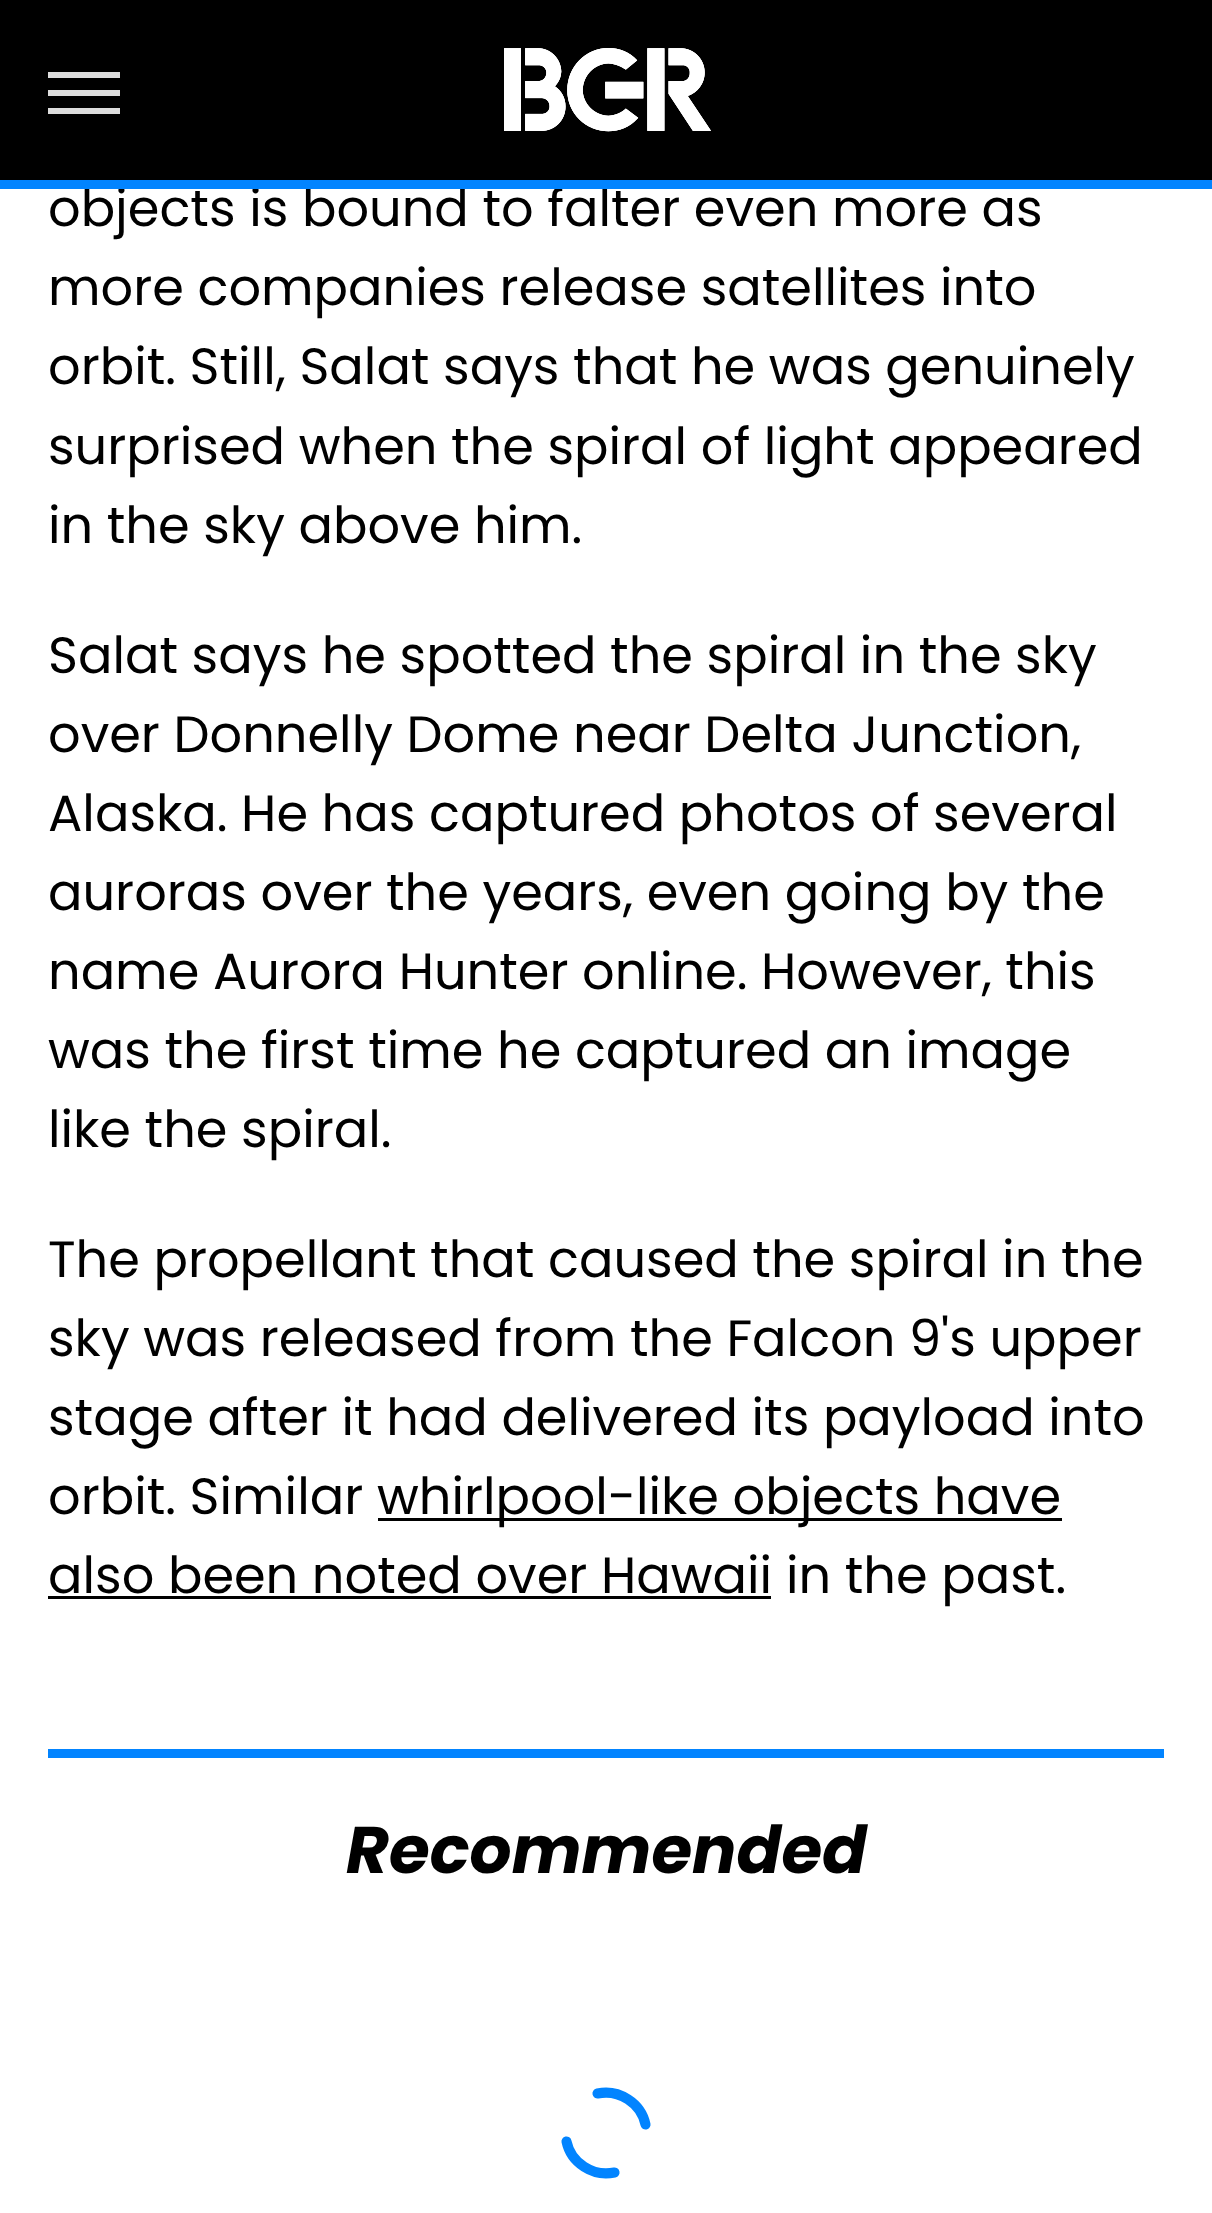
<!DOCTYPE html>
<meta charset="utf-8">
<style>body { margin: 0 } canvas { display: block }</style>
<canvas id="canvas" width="1212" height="2213"></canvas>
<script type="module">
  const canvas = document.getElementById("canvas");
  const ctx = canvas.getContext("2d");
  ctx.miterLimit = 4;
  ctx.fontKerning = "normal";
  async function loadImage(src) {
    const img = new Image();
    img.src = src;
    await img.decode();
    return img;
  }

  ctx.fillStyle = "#ffffff";
  ctx.fillRect(0, 0, 1212, 2213);
  ctx.fillStyle = "#000000";
  ctx.fillRect(0, 0, 1212, 180);
  ctx.font = "51px poppins";
  ctx.fillText("objects is bound to falter even more as", 48, 226);
  ctx.fillStyle = "#0284ff";
  ctx.fillRect(0, 180, 1212, 9);
  ctx.fillStyle = "#dddddd";
  ctx.fillRect(48, 72, 72, 6);
  ctx.fillRect(48, 90, 72, 6);
  ctx.fillRect(48, 108, 72, 6);
  ctx.drawImage(await loadImage("img1.png"), 504, 48, 207, 84);
  ctx.fillStyle = "#000000";
  ctx.fillText("more companies release satellites into", 48, 305);
  ctx.fillText("orbit. Still, Salat says that he was genuinely", 48, 384);
  ctx.fillText("surprised when the spiral of light appeared", 48, 464);
  ctx.fillText("in the sky above him.", 48, 543);
  ctx.fillText("Salat says he spotted the spiral in the sky", 48, 673);
  ctx.fillText("over Donnelly Dome near Delta Junction,", 48, 752);
  ctx.fillText("Alaska. He has captured photos of several", 48, 831);
  ctx.fillText("auroras over the years, even going by the", 48, 910);
  ctx.fillText("name Aurora Hunter online. However, this", 48, 989);
  ctx.fillText("was the first time he captured an image", 48, 1068);
  ctx.fillText("like the spiral.", 48, 1147);
  ctx.fillText("The propellant that caused the spiral in the", 48, 1277);
  ctx.fillText("sky was released from the Falcon 9's upper", 48, 1356);
  ctx.fillText("stage after it had delivered its payload into", 48, 1435);
  ctx.fillText("orbit. Similar", 48, 1514);
  ctx.fillRect(378, 1518, 684, 3);
  ctx.fillText("whirlpool-like objects have", 377, 1514);
  ctx.fillText("also been noted over Hawaii", 48, 1593);
  ctx.fillRect(48, 1596, 723, 3);
  ctx.fillText("in the past.", 786, 1593);
  ctx.fillStyle = "#0284ff";
  ctx.fillRect(48, 1749, 1116, 9);
  ctx.font = "italic bold 66px poppins";
  ctx.fillStyle = "#000000";
  ctx.fillText("Recommended", 346, 1873);
  ctx.beginPath();
  ctx.moveTo(614.5, 2172.5);
  ctx.bezierCurveTo(593, 2177, 571, 2163, 566.5, 2141.5);
  ctx.moveTo(597.5, 2093.5);
  ctx.bezierCurveTo(619, 2089, 641, 2103, 645.5, 2124.5);
  ctx.strokeStyle = "#0284ff";
  ctx.lineWidth = 10.1;
  ctx.lineCap = "round";
  ctx.stroke();
</script>
